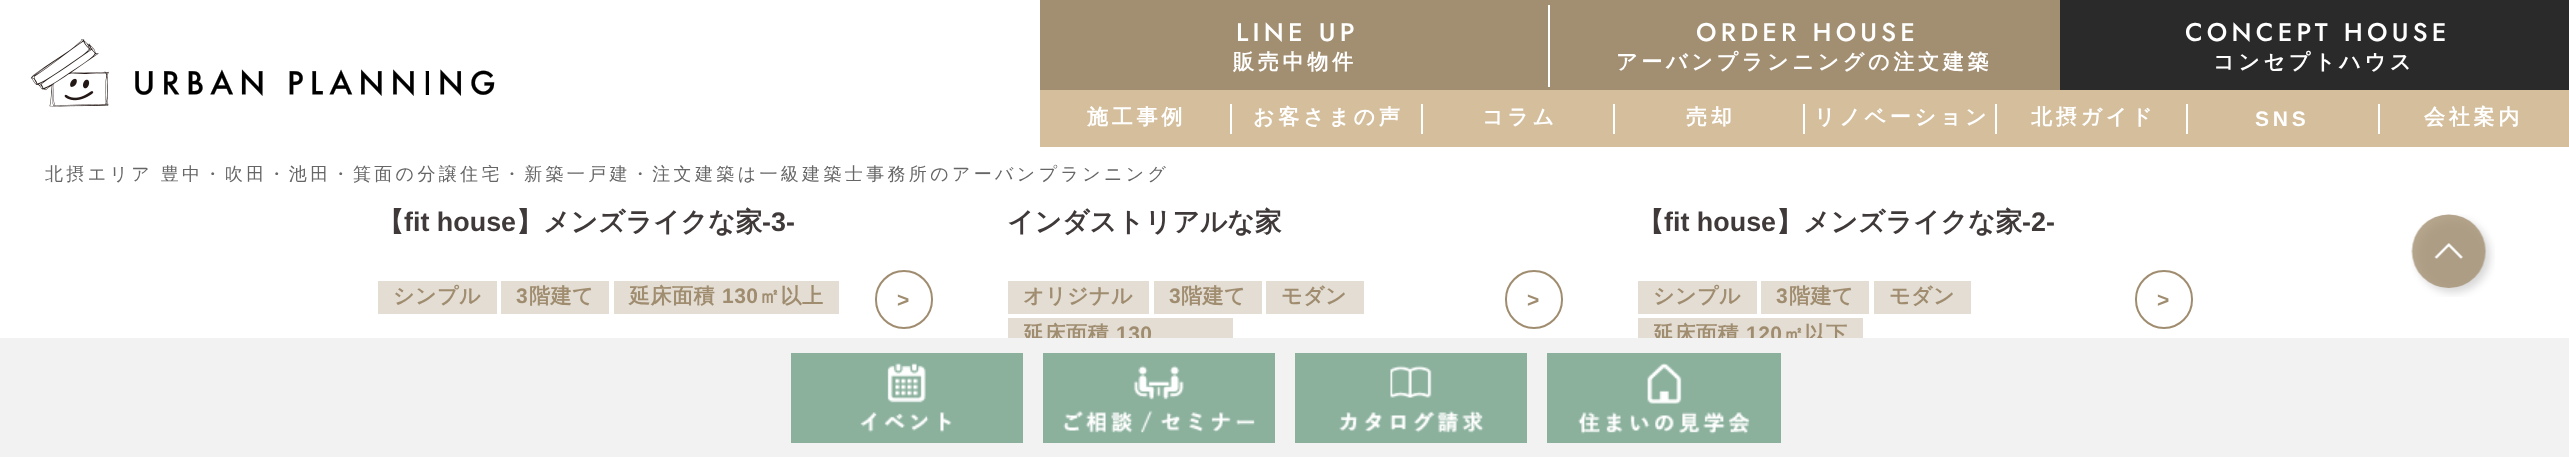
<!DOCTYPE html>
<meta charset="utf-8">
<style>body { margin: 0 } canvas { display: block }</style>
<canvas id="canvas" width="2569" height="457"></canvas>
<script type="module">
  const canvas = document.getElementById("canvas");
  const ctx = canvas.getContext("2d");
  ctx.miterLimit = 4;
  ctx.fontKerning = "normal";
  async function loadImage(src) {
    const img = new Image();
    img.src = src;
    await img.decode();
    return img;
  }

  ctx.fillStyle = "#ffffff";
  ctx.fillRect(0, 0, 2569, 457);
  ctx.drawImage(await loadImage("img1.png"), 30, 39, 465, 68);
  ctx.fillStyle = "#a28e71";
  ctx.fillRect(1040, 0, 1020, 90);
  ctx.letterSpacing = "4.25px";
  ctx.font = "500 25.5px Jost";
  ctx.fillStyle = "#ffffff";
  ctx.fillText("LINE UP", 1236, 41);
  ctx.letterSpacing = "3.75px";
  ctx.font = "bold 21px WenQuanYi Zen Hei";
  ctx.fillText("販売中物件", 1233, 69);
  ctx.fillRect(1548, 5, 2, 82);
  ctx.letterSpacing = "4.25px";
  ctx.font = "500 25.5px Jost";
  ctx.fillText("ORDER HOUSE", 1696, 41);
  ctx.letterSpacing = "3.75px";
  ctx.font = "bold 21px WenQuanYi Zen Hei";
  ctx.fillText("アーバンプランニングの注文建築", 1616, 69);
  ctx.fillStyle = "#2a2a2a";
  ctx.fillRect(2060, 0, 509, 90);
  ctx.letterSpacing = "4.25px";
  ctx.font = "500 25.5px Jost";
  ctx.fillStyle = "#ffffff";
  ctx.fillText("CONCEPT HOUSE", 2185, 41);
  ctx.letterSpacing = "3.75px";
  ctx.font = "bold 21px WenQuanYi Zen Hei";
  ctx.fillText("コンセプトハウス", 2213, 69);
  ctx.fillStyle = "#d4be9c";
  ctx.fillRect(1040, 90, 1529, 57);
  ctx.fillStyle = "#ffffff";
  ctx.fillText("施工事例", 1087, 124);
  ctx.fillRect(1230, 104, 2, 30);
  ctx.fillText("お客さまの声", 1253, 124);
  ctx.fillRect(1421, 104, 2, 30);
  ctx.fillText("コラム", 1482, 124);
  ctx.fillRect(1613, 104, 2, 30);
  ctx.fillText("売却", 1686, 124);
  ctx.fillRect(1803, 104, 2, 30);
  ctx.fillText("リノベーション", 1814, 124);
  ctx.fillRect(1995, 104, 2, 30);
  ctx.fillText("北摂ガイド", 2031, 124);
  ctx.fillRect(2186, 104, 2, 30);
  ctx.font = "bold 21px Liberation Sans";
  ctx.fillText("SNS", 2255, 126);
  ctx.fillRect(2378, 104, 2, 30);
  ctx.font = "bold 21px WenQuanYi Zen Hei";
  ctx.fillText("会社案内", 2424, 124);
  ctx.letterSpacing = "3.35px";
  ctx.wordSpacing = "-1px";
  ctx.font = "500 18px WenQuanYi Zen Hei";
  ctx.fillStyle = "#666666";
  ctx.fillText("北摂エリア 豊中・吹田・池田・箕面の分譲住宅・新築一戸建・注文建築は一級建築士事務所のアーバンプランニング", 45, 180);
  ctx.letterSpacing = "0px";
  ctx.wordSpacing = "0px";
  ctx.font = "bold 26.9px WenQuanYi Zen Hei";
  ctx.fillStyle = "#3f3a39";
  ctx.fillText("【", 377, 231);
  ctx.font = "bold 26.9px Liberation Sans";
  ctx.fillText("fit house", 404, 231);
  ctx.font = "bold 26.9px WenQuanYi Zen Hei";
  ctx.fillText("】メンズライクな家", 516, 231);
  ctx.font = "bold 26.9px Liberation Sans";
  ctx.fillText("-3-", 762, 231);
  ctx.fillStyle = "#e3ddd4";
  ctx.fillRect(378, 281, 119, 33);
  ctx.letterSpacing = "0.5px";
  ctx.font = "bold 21px WenQuanYi Zen Hei";
  ctx.fillStyle = "#a08d70";
  ctx.fillText("シンプル", 393, 303);
  ctx.fillStyle = "#e3ddd4";
  ctx.fillRect(501, 281, 108, 33);
  ctx.font = "bold 21px Liberation Sans";
  ctx.fillStyle = "#a08d70";
  ctx.fillText("3", 516, 303);
  ctx.font = "bold 21px WenQuanYi Zen Hei";
  ctx.fillText("階建て", 529, 303);
  ctx.fillStyle = "#e3ddd4";
  ctx.fillRect(614, 281, 225, 33);
  ctx.fillStyle = "#a08d70";
  ctx.fillText("延床面積", 629, 303);
  ctx.font = "bold 21px Liberation Sans";
  ctx.fillText("130", 722, 303);
  ctx.font = "bold 21px WenQuanYi Zen Hei";
  ctx.fillText("㎡以上", 759, 303);
  ctx.beginPath();
  ctx.roundRect(876, 271, 56, 57, 28);
  ctx.strokeStyle = "#a08d70";
  ctx.lineWidth = 2;
  ctx.stroke();
  ctx.letterSpacing = "0px";
  ctx.font = "bold 21px Liberation Sans";
  ctx.fillText(">", 897, 307);
  ctx.font = "bold 26.9px WenQuanYi Zen Hei";
  ctx.fillStyle = "#3f3a39";
  ctx.fillText("インダストリアルな家", 1007, 231);
  ctx.fillStyle = "#e3ddd4";
  ctx.fillRect(1008, 281, 141, 33);
  ctx.letterSpacing = "0.5px";
  ctx.font = "bold 21px WenQuanYi Zen Hei";
  ctx.fillStyle = "#a08d70";
  ctx.fillText("オリジナル", 1023, 303);
  ctx.fillStyle = "#e3ddd4";
  ctx.fillRect(1154, 281, 108, 33);
  ctx.font = "bold 21px Liberation Sans";
  ctx.fillStyle = "#a08d70";
  ctx.fillText("3", 1169, 303);
  ctx.font = "bold 21px WenQuanYi Zen Hei";
  ctx.fillText("階建て", 1181, 303);
  ctx.fillStyle = "#e3ddd4";
  ctx.fillRect(1266, 281, 98, 33);
  ctx.fillStyle = "#a08d70";
  ctx.fillText("モダン", 1281, 303);
  ctx.beginPath();
  ctx.roundRect(1506, 271, 56, 57, 28);
  ctx.stroke();
  ctx.letterSpacing = "0px";
  ctx.font = "bold 21px Liberation Sans";
  ctx.fillText(">", 1527, 307);
  ctx.fillStyle = "#e3ddd4";
  ctx.fillRect(1008, 318, 225, 20);
  ctx.letterSpacing = "0.5px";
  ctx.font = "bold 21px WenQuanYi Zen Hei";
  ctx.fillStyle = "#a08d70";
  ctx.fillText("延床面積", 1023, 341);
  ctx.font = "bold 21px Liberation Sans";
  ctx.fillText("130", 1116, 341);
  ctx.letterSpacing = "0px";
  ctx.font = "bold 26.9px WenQuanYi Zen Hei";
  ctx.fillStyle = "#3f3a39";
  ctx.fillText("【", 1637, 231);
  ctx.font = "bold 26.9px Liberation Sans";
  ctx.fillText("fit house", 1664, 231);
  ctx.font = "bold 26.9px WenQuanYi Zen Hei";
  ctx.fillText("】メンズライクな家", 1776, 231);
  ctx.font = "bold 26.9px Liberation Sans";
  ctx.fillText("-2-", 2022, 231);
  ctx.fillStyle = "#e3ddd4";
  ctx.fillRect(1638, 281, 119, 33);
  ctx.letterSpacing = "0.5px";
  ctx.font = "bold 21px WenQuanYi Zen Hei";
  ctx.fillStyle = "#a08d70";
  ctx.fillText("シンプル", 1653, 303);
  ctx.fillStyle = "#e3ddd4";
  ctx.fillRect(1761, 281, 108, 33);
  ctx.font = "bold 21px Liberation Sans";
  ctx.fillStyle = "#a08d70";
  ctx.fillText("3", 1776, 303);
  ctx.font = "bold 21px WenQuanYi Zen Hei";
  ctx.fillText("階建て", 1789, 303);
  ctx.fillStyle = "#e3ddd4";
  ctx.fillRect(1874, 281, 97, 33);
  ctx.fillStyle = "#a08d70";
  ctx.fillText("モダン", 1889, 303);
  ctx.beginPath();
  ctx.roundRect(2136, 271, 56, 57, 28);
  ctx.stroke();
  ctx.letterSpacing = "0px";
  ctx.font = "bold 21px Liberation Sans";
  ctx.fillText(">", 2157, 307);
  ctx.fillStyle = "#e3ddd4";
  ctx.fillRect(1638, 318, 225, 20);
  ctx.letterSpacing = "0.5px";
  ctx.font = "bold 21px WenQuanYi Zen Hei";
  ctx.fillStyle = "#a08d70";
  ctx.fillText("延床面積", 1653, 341);
  ctx.font = "bold 21px Liberation Sans";
  ctx.fillText("120", 1746, 341);
  ctx.font = "bold 21px WenQuanYi Zen Hei";
  ctx.fillText("㎡以下", 1783, 341);
  ctx.drawImage(await loadImage("img2.png"), 2411, 214, 84, 83);
  ctx.fillStyle = "#f2f2f2";
  ctx.fillRect(0, 338, 2569, 119);
  ctx.fillStyle = "#8bb19d";
  ctx.fillRect(791, 353, 232, 90);
  ctx.drawImage(await loadImage("img3.png"), 860, 363, 92, 70);
  ctx.fillRect(1043, 353, 232, 90);
  ctx.drawImage(await loadImage("img4.png"), 1063, 365, 192, 68);
  ctx.fillRect(1295, 353, 232, 90);
  ctx.drawImage(await loadImage("img5.png"), 1339, 365, 145, 68);
  ctx.fillRect(1547, 353, 234, 90);
  ctx.drawImage(await loadImage("img6.png"), 1578, 363, 172, 71);
</script>
